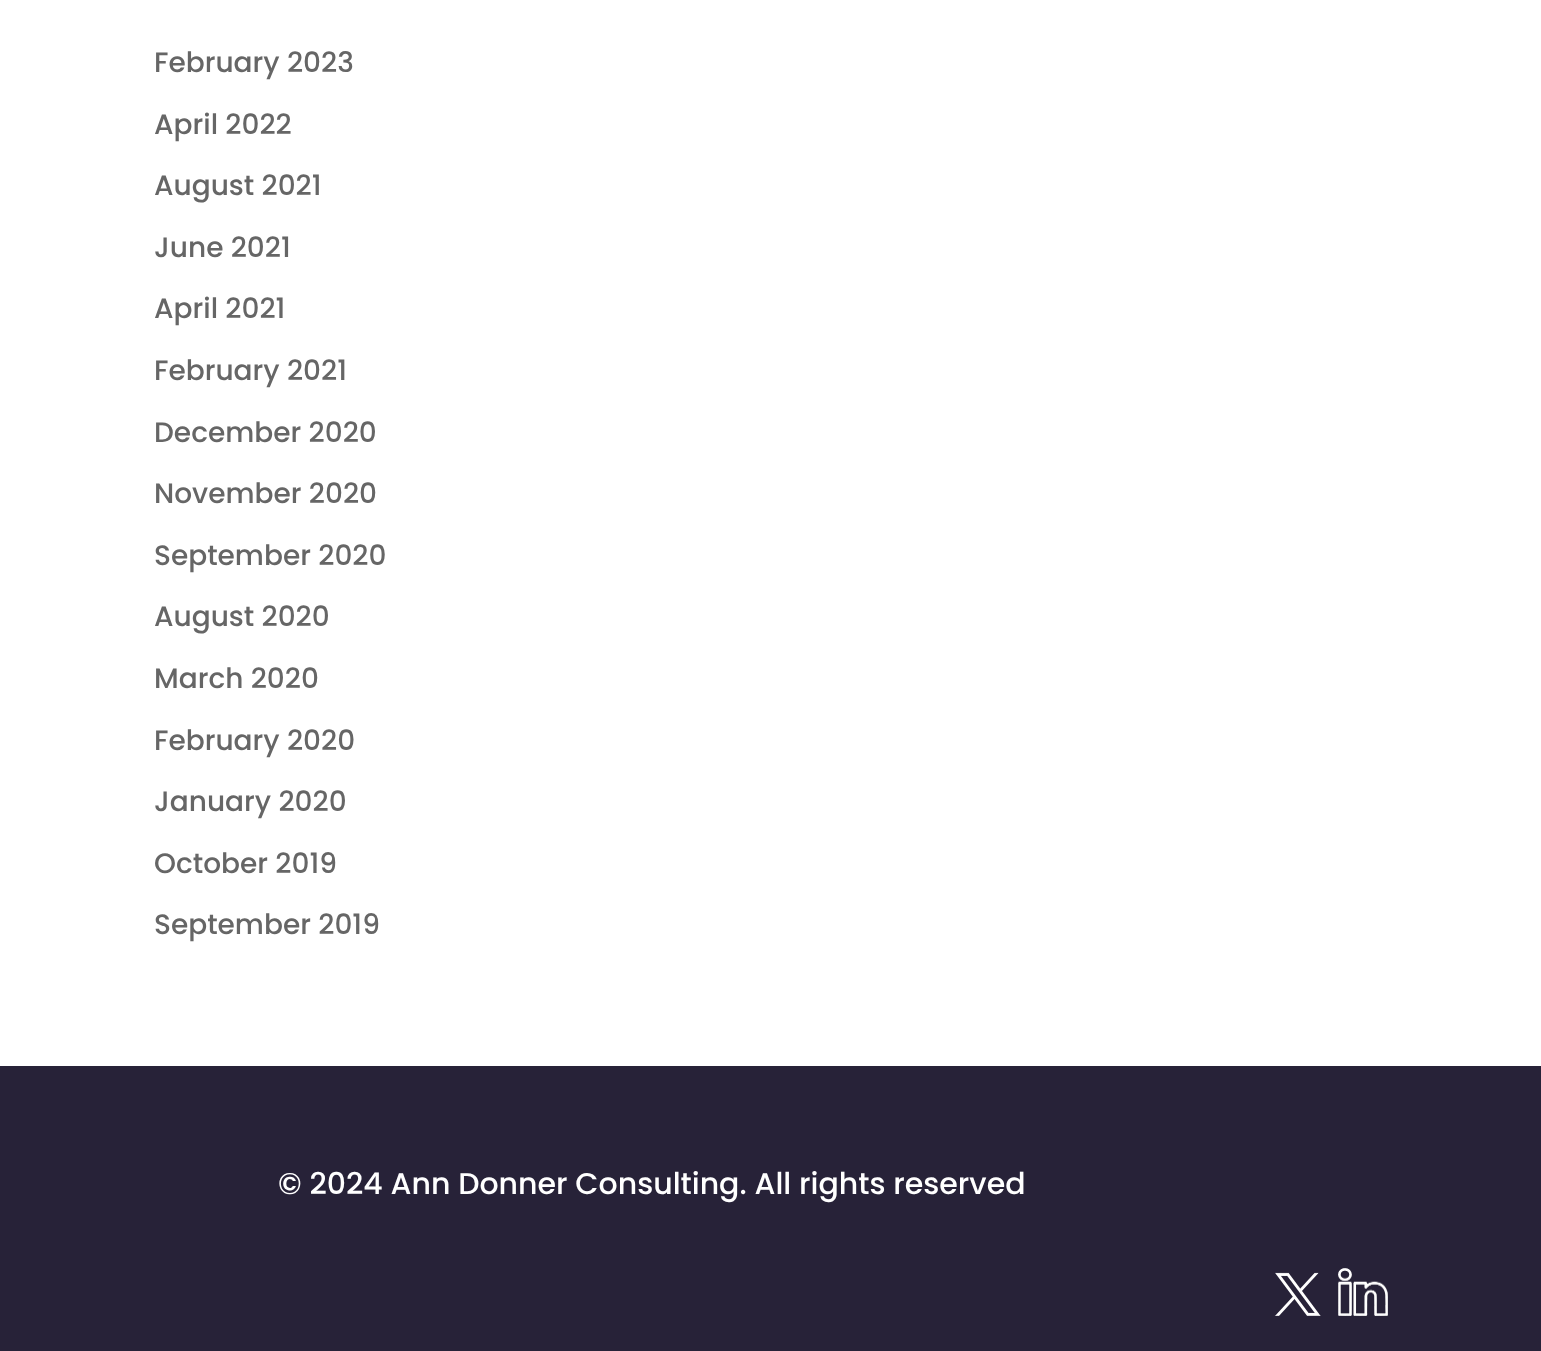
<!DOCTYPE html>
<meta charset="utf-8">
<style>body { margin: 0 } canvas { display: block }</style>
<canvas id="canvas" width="1541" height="1351"></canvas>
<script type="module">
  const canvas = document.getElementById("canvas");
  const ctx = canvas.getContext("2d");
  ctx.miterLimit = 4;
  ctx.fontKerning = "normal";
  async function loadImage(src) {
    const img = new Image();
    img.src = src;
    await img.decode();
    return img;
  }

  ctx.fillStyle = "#ffffff";
  ctx.fillRect(0, 0, 1541, 1351);
  ctx.font = "500 28px Poppins";
  ctx.fillStyle = "#666666";
  ctx.fillText("February 2023", 154, 72);
  ctx.fillText("April 2022", 154, 134);
  ctx.fillText("August 2021", 154, 195);
  ctx.fillText("June 2021", 154, 257);
  ctx.fillText("April 2021", 154, 318);
  ctx.fillText("February 2021", 154, 380);
  ctx.fillText("December 2020", 154, 442);
  ctx.fillText("November 2020", 154, 503);
  ctx.fillText("September 2020", 154, 565);
  ctx.fillText("August 2020", 154, 626);
  ctx.fillText("March 2020", 154, 688);
  ctx.fillText("February 2020", 154, 750);
  ctx.fillText("January 2020", 154, 811);
  ctx.fillText("October 2019", 154, 873);
  ctx.fillText("September 2019", 154, 934);
  ctx.fillStyle = "#272238";
  ctx.fillRect(0, 1066, 1541, 285);
  ctx.font = "500 30px Poppins";
  ctx.fillStyle = "#ffffff";
  ctx.fillText("© 2024 Ann Donner Consulting. All rights reserved", 278, 1194);
  ctx.drawImage(await loadImage("img1.png"), 1274, 1272, 47, 44);
  ctx.drawImage(await loadImage("img2.png"), 1338, 1268, 50, 48);
</script>
